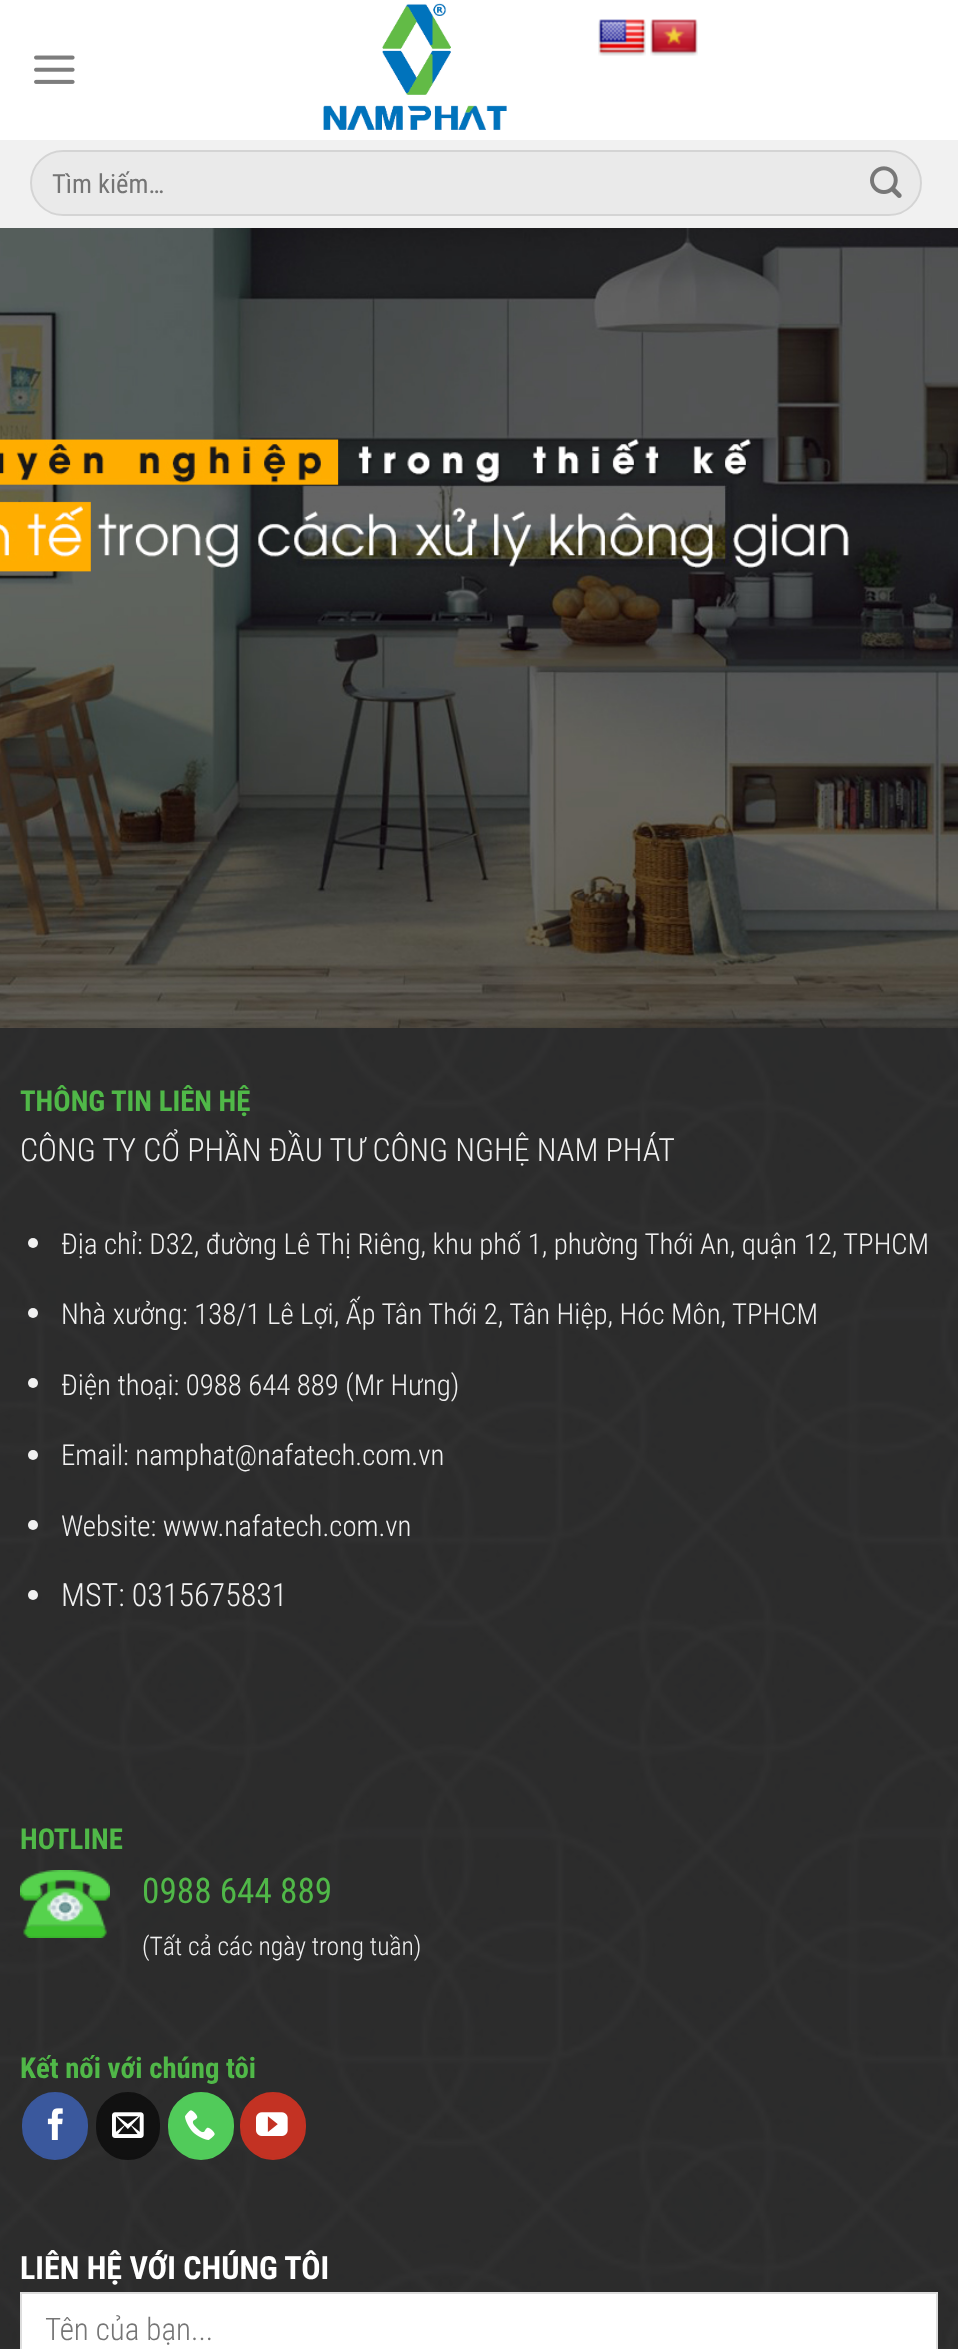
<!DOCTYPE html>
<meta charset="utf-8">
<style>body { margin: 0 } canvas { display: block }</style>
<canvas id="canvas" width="958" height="2349"></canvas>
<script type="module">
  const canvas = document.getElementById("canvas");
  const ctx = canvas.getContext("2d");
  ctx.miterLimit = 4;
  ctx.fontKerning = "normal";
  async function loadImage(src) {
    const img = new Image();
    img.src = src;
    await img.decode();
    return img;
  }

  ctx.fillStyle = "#ffffff";
  ctx.fillRect(0, 0, 958, 2349);
  ctx.drawImage(await loadImage("img1.png"), 323, 3, 184, 127);
  ctx.drawImage(await loadImage("img2.png"), 598, 19, 48, 37);
  ctx.drawImage(await loadImage("img3.png"), 650, 19, 48, 37);
  ctx.drawImage(await loadImage("img4.png"), 34, 55, 41, 29);
  ctx.fillStyle = "#f1f1f1";
  ctx.fillRect(0, 140, 958, 88);
  ctx.fillStyle = "#eaeaea";
  ctx.beginPath();
  ctx.roundRect(30, 150, 892, 66, 33);
  ctx.fill();
  ctx.beginPath();
  ctx.roundRect(31, 151, 890, 64, 32);
  ctx.strokeStyle = "rgba(0, 0, 0, 0.09)";
  ctx.lineWidth = 2;
  ctx.stroke();
  ctx.font = "26.5px Roboto Condensed";
  ctx.fillStyle = "#757575";
  ctx.fillText("Tìm kiếm…", 52, 193);
  ctx.drawImage(await loadImage("img5.png"), 870, 166, 32, 32);
  ctx.drawImage(await loadImage("img6.png"), 0, 228, 958, 800);
  ctx.drawImage(await loadImage("img7.png"), 0, 1028, 958, 1321);
  ctx.font = "bold 28.8px Roboto Condensed";
  ctx.fillStyle = "#50b848";
  ctx.fillText("THÔNG TIN LIÊN HỆ", 20, 1111);
  ctx.font = "300 32px Roboto Condensed";
  ctx.fillStyle = "#f1f1f1";
  ctx.fillText("CÔNG TY CỔ PHẦN ĐẦU TƯ CÔNG NGHỆ NAM PHÁT", 20, 1161);
  ctx.beginPath();
  ctx.arc(33, 1243, 5, 0, Math.PI * 2);
  ctx.fill();
  ctx.font = "300 28.8px Roboto Condensed";
  ctx.fillText("Địa chỉ: D32, đường Lê Thị Riêng, khu phố 1, phường Thới An, quận 12, TPHCM", 61, 1254);
  ctx.beginPath();
  ctx.arc(33, 1313, 5, 0, Math.PI * 2);
  ctx.fill();
  ctx.fillText("Nhà xưởng: 138/1 Lê Lợi, Ấp Tân Thới 2, Tân Hiệp, Hóc Môn, TPHCM", 61, 1324);
  ctx.beginPath();
  ctx.arc(33, 1383, 5, 0, Math.PI * 2);
  ctx.fill();
  ctx.fillText("Điện thoại: 0988 644 889 (Mr Hưng)", 61, 1395);
  ctx.beginPath();
  ctx.arc(33, 1455, 5, 0, Math.PI * 2);
  ctx.fill();
  ctx.fillText("Email: namphat@nafatech.com.vn", 61, 1465);
  ctx.beginPath();
  ctx.arc(33, 1525, 5, 0, Math.PI * 2);
  ctx.fill();
  ctx.fillText("Website: www.nafatech.com.vn", 61, 1536);
  ctx.beginPath();
  ctx.arc(33, 1595, 5, 0, Math.PI * 2);
  ctx.fill();
  ctx.font = "300 32px Roboto Condensed";
  ctx.fillText("MST: 0315675831", 61, 1606);
  ctx.font = "bold 28.8px Roboto Condensed";
  ctx.fillStyle = "#50b848";
  ctx.fillText("HOTLINE", 20, 1849);
  ctx.drawImage(await loadImage("img8.png"), 20, 1870, 90, 68);
  ctx.font = "35.25px Roboto Condensed";
  ctx.fillText("0988 644 889", 142, 1903);
  ctx.font = "300 25.6px Roboto Condensed";
  ctx.fillStyle = "#f1f1f1";
  ctx.fillText("(Tất cả các ngày trong tuần)", 142, 1955);
  ctx.font = "bold 28.8px Roboto Condensed";
  ctx.fillStyle = "#50b848";
  ctx.fillText("Kết nối với chúng tôi", 20, 2078);
  ctx.fillStyle = "#3a589d";
  ctx.beginPath();
  ctx.roundRect(23, 2093, 64, 66, 32);
  ctx.fill();
  ctx.strokeStyle = "#3a589d";
  ctx.stroke();
  ctx.drawImage(await loadImage("img9.png"), 47, 2108, 16, 32);
  ctx.fillStyle = "#111111";
  ctx.beginPath();
  ctx.roundRect(97, 2093, 62, 66, 31);
  ctx.fill();
  ctx.strokeStyle = "#111111";
  ctx.stroke();
  ctx.drawImage(await loadImage("img10.png"), 112, 2112, 32, 26);
  ctx.fillStyle = "#51cb5a";
  ctx.beginPath();
  ctx.roundRect(169, 2093, 64, 66, 32);
  ctx.fill();
  ctx.strokeStyle = "#51cb5a";
  ctx.stroke();
  ctx.drawImage(await loadImage("img11.png"), 185, 2110, 30, 30);
  ctx.fillStyle = "#c33223";
  ctx.beginPath();
  ctx.roundRect(241, 2093, 64, 66, 32);
  ctx.fill();
  ctx.strokeStyle = "#c33223";
  ctx.stroke();
  ctx.drawImage(await loadImage("img12.png"), 256, 2112, 32, 24);
  ctx.font = "bold 32px Roboto Condensed";
  ctx.fillStyle = "#ffffff";
  ctx.fillText("LIÊN HỆ VỚI CHÚNG TÔI", 20, 2279);
  ctx.beginPath();
  ctx.rect(21, 2293, 916, 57);
  ctx.fill();
  ctx.strokeStyle = "#dddddd";
  ctx.stroke();
  ctx.font = "300 31px Roboto Condensed";
  ctx.fillStyle = "#757575";
  ctx.fillText("Tên của bạn...", 45, 2340);
</script>
